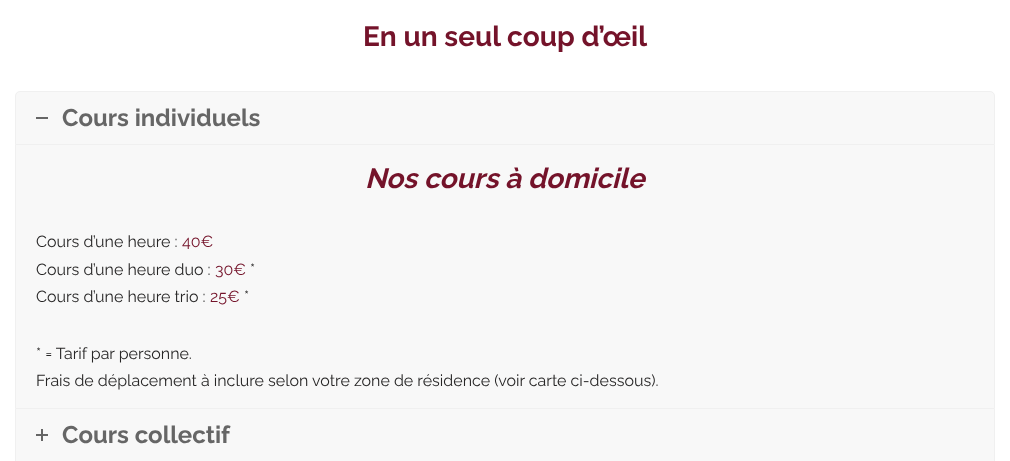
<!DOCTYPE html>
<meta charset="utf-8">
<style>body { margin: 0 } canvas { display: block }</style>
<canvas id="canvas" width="1010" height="461"></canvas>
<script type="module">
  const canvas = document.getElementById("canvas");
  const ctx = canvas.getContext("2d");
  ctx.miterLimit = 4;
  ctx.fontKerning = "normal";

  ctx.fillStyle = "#ffffff";
  ctx.fillRect(0, 0, 1010, 461);
  ctx.font = "bold 28px Raleway";
  ctx.fillStyle = "#74132a";
  ctx.fillText("En un seul coup d’œil", 363, 46);
  ctx.fillStyle = "#f8f8f8";
  ctx.beginPath();
  ctx.roundRect(15.5, 91.5, 979, 53, [4.5, 4.5, 0, 0]);
  ctx.fill();
  ctx.strokeStyle = "#f0f0f0";
  ctx.stroke();
  ctx.fillStyle = "#666666";
  ctx.fillRect(36, 117, 12, 2);
  ctx.font = "bold 24px Raleway";
  ctx.fillText("Cours individuels", 62, 126);
  ctx.fillStyle = "#f8f8f8";
  ctx.beginPath();
  ctx.rect(15.5, 408.5, 979, 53);
  ctx.fill();
  ctx.stroke();
  ctx.beginPath();
  ctx.rect(15.5, 144.5, 979, 264);
  ctx.fill();
  ctx.stroke();
  ctx.font = "italic bold 28px Raleway";
  ctx.fillStyle = "#74132a";
  ctx.fillText("Nos cours à domicile", 365, 188);
  ctx.font = "16px Raleway";
  ctx.fillStyle = "#272626";
  ctx.fillText("Cours d’une heure :", 36, 247);
  ctx.fillStyle = "#74132a";
  ctx.fillText("40€", 182, 247);
  ctx.fillStyle = "#272626";
  ctx.fillText("Cours d’une heure duo :", 36, 275);
  ctx.fillStyle = "#74132a";
  ctx.fillText("30€", 215, 275);
  ctx.fillStyle = "#272626";
  ctx.fillText("*", 250, 275);
  ctx.fillText("Cours d’une heure trio :", 36, 302);
  ctx.fillStyle = "#74132a";
  ctx.fillText("25€", 210, 302);
  ctx.fillStyle = "#272626";
  ctx.fillText("*", 244, 302);
  ctx.fillText("* = Tarif par personne.", 36, 359);
  ctx.fillText("Frais de déplacement à inclure selon votre zone de résidence (voir carte ci-dessous).", 36, 386);
  ctx.fillStyle = "#666666";
  ctx.fillRect(36, 434, 12, 2);
  ctx.fillRect(41, 429, 2, 12);
  ctx.font = "bold 24px Raleway";
  ctx.fillText("Cours collectif", 62, 443);
</script>
